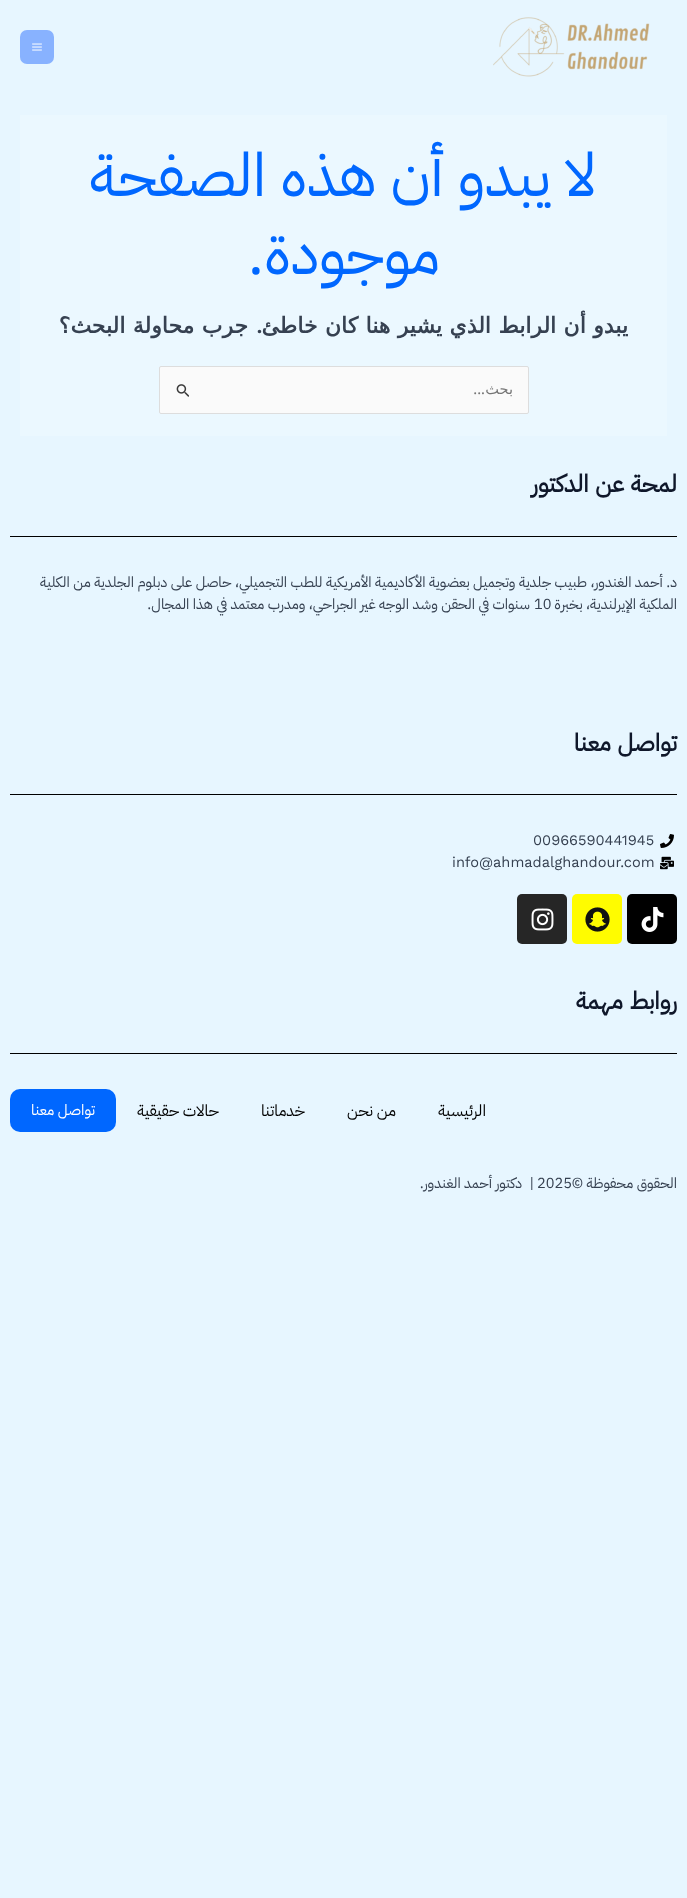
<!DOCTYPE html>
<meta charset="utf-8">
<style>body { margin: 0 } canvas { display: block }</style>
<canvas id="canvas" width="687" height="1898"></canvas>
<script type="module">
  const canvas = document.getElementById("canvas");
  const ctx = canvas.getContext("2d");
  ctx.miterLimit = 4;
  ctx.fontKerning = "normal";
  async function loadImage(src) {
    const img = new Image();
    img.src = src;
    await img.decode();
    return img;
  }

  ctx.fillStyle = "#e7f6ff";
  ctx.fillRect(0, 0, 687, 1898);
  ctx.drawImage(await loadImage("img1.png"), 493, 17, 157, 60);
  ctx.fillStyle = "#88b2ff";
  ctx.beginPath();
  ctx.roundRect(20, 30, 34, 34, 7);
  ctx.fill();
  ctx.drawImage(await loadImage("img2.png"), 32, 43, 10, 8);
  ctx.fillStyle = "#ebf8ff";
  ctx.fillRect(20, 115, 647, 321);
  ctx.direction = "rtl";
  ctx.font = "60px IBM Plex Sans Arabic";
  ctx.fillStyle = "#0067ff";
  ctx.fillText("لا يبدو أن هذه الصفحة", 596, 196);
  ctx.fillText("موجودة.", 440, 274);
  ctx.wordSpacing = "0.5px";
  ctx.font = "bold 21.9px DejaVu Sans";
  ctx.fillStyle = "#364151";
  ctx.fillText("يبدو أن الرابط الذي يشير هنا كان خاطئ", 628, 333);
  ctx.wordSpacing = "0px";
  ctx.font = "bold 21.9px Work Sans";
  ctx.fillText(".", 262, 333);
  ctx.wordSpacing = "0.5px";
  ctx.font = "bold 21.9px DejaVu Sans";
  ctx.fillText("جرب محاولة البحث؟", 248, 333);
  ctx.fillStyle = "#fafafa";
  ctx.beginPath();
  ctx.roundRect(159.5, 366.5, 369, 47, 1.5);
  ctx.fill();
  ctx.strokeStyle = "#dddddd";
  ctx.stroke();
  ctx.wordSpacing = "0px";
  ctx.font = "14.6px DejaVu Sans";
  ctx.fillStyle = "#757575";
  ctx.fillText("بحث", 513, 394);
  ctx.font = "14.6px Work Sans";
  ctx.fillText("...", 485, 394);
  ctx.drawImage(await loadImage("img3.png"), 176, 384, 13, 13);
  ctx.wordSpacing = "1px";
  ctx.font = "bold 24px IBM Plex Sans Arabic";
  ctx.fillStyle = "#0f172a";
  ctx.fillText("لمحة عن الدكتور", 677, 492);
  ctx.fillStyle = "#000000";
  ctx.fillRect(10, 536, 667, 1);
  ctx.wordSpacing = "0px";
  ctx.font = "14.6px IBM Plex Sans Arabic";
  ctx.fillStyle = "#364151";
  ctx.fillText("د. أحمد الغندور، طبيب جلدية وتجميل بعضوية الأكاديمية الأمريكية للطب التجميلي، حاصل على دبلوم الجلدية من الكلية", 677, 587);
  ctx.fillText("الملكية الإيرلندية، بخبرة", 677, 609);
  ctx.direction = "ltr";
  ctx.fillText("10", 534, 609);
  ctx.direction = "rtl";
  ctx.fillText("سنوات في الحقن وشد الوجه غير الجراحي، ومدرب معتمد في هذا المجال.", 530, 609);
  ctx.wordSpacing = "1px";
  ctx.font = "bold 24px IBM Plex Sans Arabic";
  ctx.fillStyle = "#0f172a";
  ctx.fillText("تواصل معنا", 677, 751);
  ctx.fillStyle = "#000000";
  ctx.fillRect(10, 794, 667, 1);
  ctx.drawImage(await loadImage("img4.png"), 660, 834, 14, 14);
  ctx.wordSpacing = "0px";
  ctx.direction = "ltr";
  ctx.font = "14.6px Work Sans";
  ctx.fillStyle = "#364151";
  ctx.fillText("00966590441945", 533, 845);
  ctx.drawImage(await loadImage("img5.png"), 660, 856, 14, 14);
  ctx.fillText("info@ahmadalghandour.com", 452, 867);
  ctx.fillStyle = "#000000";
  ctx.beginPath();
  ctx.roundRect(627, 894, 50, 50, 5);
  ctx.fill();
  ctx.drawImage(await loadImage("img6.png"), 641, 907, 23, 25);
  ctx.fillStyle = "#fffc00";
  ctx.beginPath();
  ctx.roundRect(572, 894, 50, 50, 5);
  ctx.fill();
  ctx.drawImage(await loadImage("img7.png"), 585, 907, 25, 25);
  ctx.fillStyle = "#262626";
  ctx.beginPath();
  ctx.roundRect(517, 894, 50, 50, 5);
  ctx.fill();
  ctx.drawImage(await loadImage("img8.png"), 531, 908, 23, 23);
  ctx.wordSpacing = "1px";
  ctx.direction = "rtl";
  ctx.font = "bold 24px IBM Plex Sans Arabic";
  ctx.fillStyle = "#0f172a";
  ctx.fillText("روابط مهمة", 677, 1009);
  ctx.fillStyle = "#000000";
  ctx.fillRect(10, 1053, 667, 1);
  ctx.wordSpacing = "0px";
  ctx.font = "16px IBM Plex Sans Arabic";
  ctx.fillText("الرئيسية", 486, 1116);
  ctx.fillText("من نحن", 396, 1116);
  ctx.fillText("خدماتنا", 305, 1116);
  ctx.fillText("حالات حقيقية", 219, 1116);
  ctx.fillStyle = "#0067ff";
  ctx.beginPath();
  ctx.roundRect(10, 1089, 106, 43, 10);
  ctx.fill();
  ctx.font = "15px IBM Plex Sans Arabic";
  ctx.fillStyle = "#ffffff";
  ctx.fillText("تواصل معنا", 95, 1115);
  ctx.font = "14.6px IBM Plex Sans Arabic";
  ctx.fillStyle = "#364151";
  ctx.fillText("الحقوق محفوظة ©", 677, 1188);
  ctx.direction = "ltr";
  ctx.fillText("2025", 537, 1188);
  ctx.direction = "rtl";
  ctx.fillText("| دكتور أحمد الغندور.", 534, 1188);
</script>
